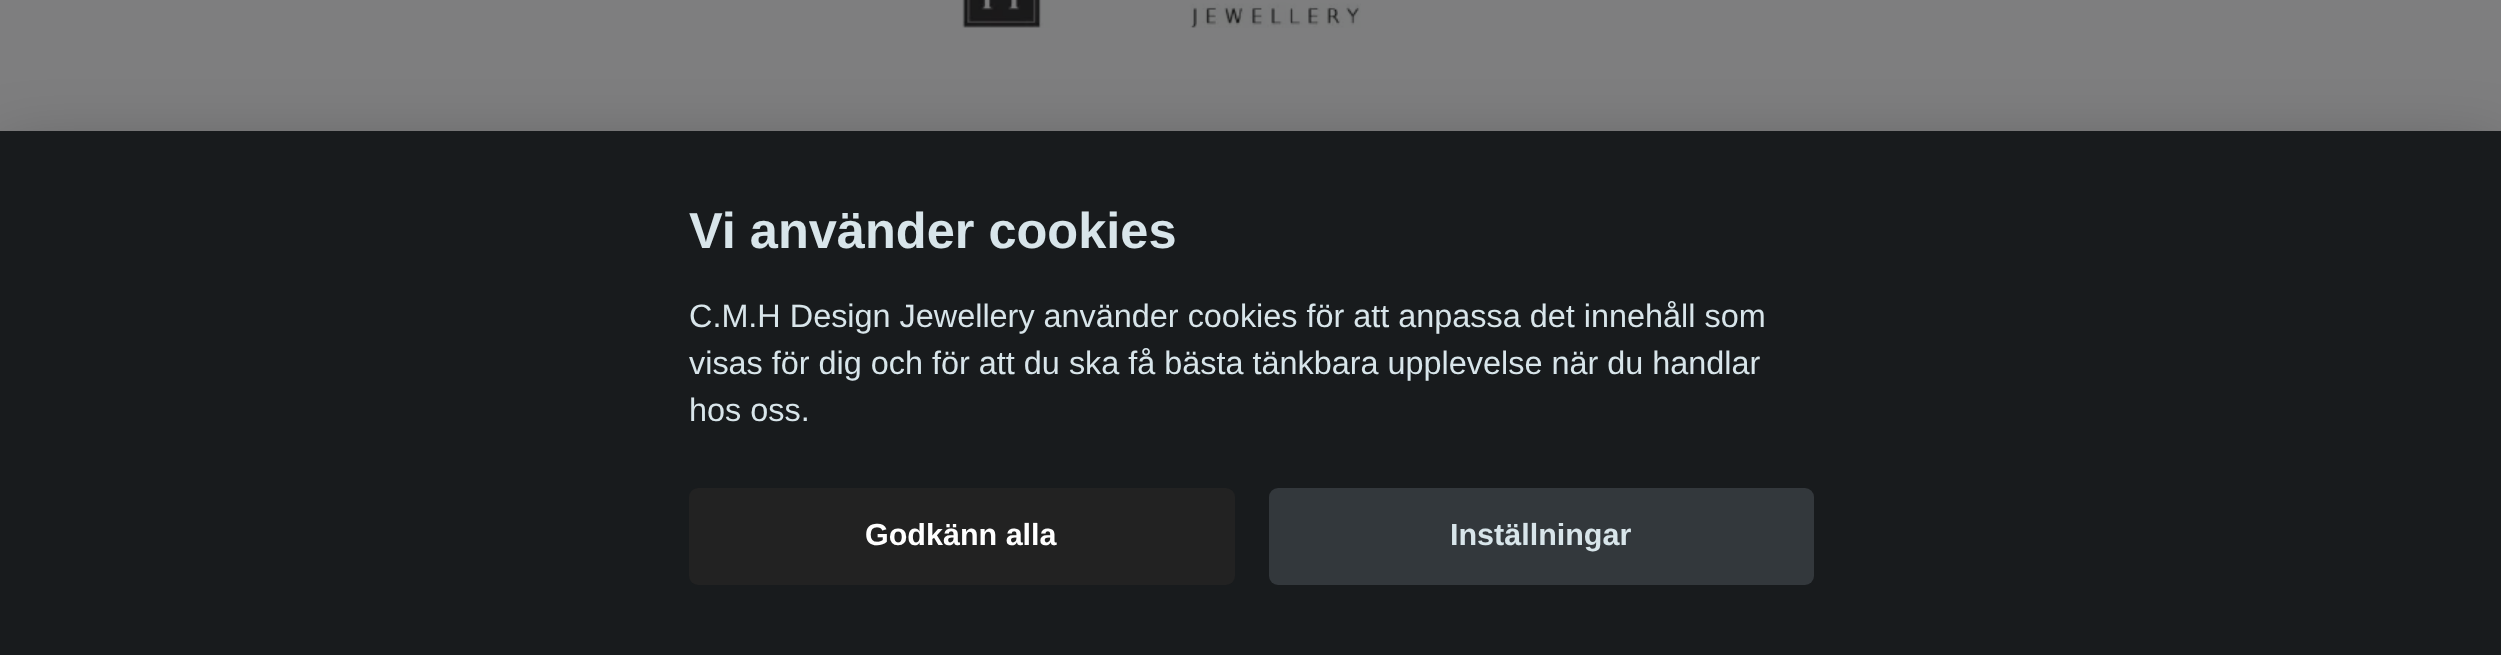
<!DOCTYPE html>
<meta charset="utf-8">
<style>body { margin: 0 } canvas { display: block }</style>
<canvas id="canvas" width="2501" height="655"></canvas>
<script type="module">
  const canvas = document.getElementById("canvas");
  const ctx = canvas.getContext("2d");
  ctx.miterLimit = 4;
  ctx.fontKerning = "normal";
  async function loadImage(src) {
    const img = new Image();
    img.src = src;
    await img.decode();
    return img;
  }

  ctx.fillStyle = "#7e7e7f";
  ctx.fillRect(0, 0, 2501, 655);
  ctx.drawImage(await loadImage("img1.png"), 962, 0, 399, 28);
  ctx.fillStyle = "rgba(2, 2, 3, 0.28)";
  ctx.filter = "blur(34px)";
  ctx.beginPath();
  ctx.rect(0, 153, 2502, 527);
  ctx.fill();
  ctx.filter = "none";
  ctx.fillStyle = "#181b1d";
  ctx.fillRect(0, 131, 2501, 524);
  ctx.font = "bold 50.5px Liberation Sans";
  ctx.fillStyle = "#d8e5ea";
  ctx.fillText("Vi använder cookies", 689, 248);
  ctx.font = "32.4px Liberation Sans";
  ctx.fillText("C.M.H Design Jewellery använder cookies för att anpassa det innehåll som", 689, 327);
  ctx.fillText("visas för dig och för att du ska få bästa tänkbara upplevelse när du handlar", 689, 374);
  ctx.fillText("hos oss.", 689, 421);
  ctx.fillStyle = "#222222";
  ctx.beginPath();
  ctx.roundRect(689, 488, 546, 97, 9);
  ctx.fill();
  ctx.font = "bold 30.5px Liberation Sans";
  ctx.fillStyle = "#ffffff";
  ctx.fillText("Godkänn alla", 865, 545);
  ctx.fillStyle = "#33383c";
  ctx.beginPath();
  ctx.roundRect(1269, 488, 545, 97, 9);
  ctx.fill();
  ctx.fillStyle = "#d8e5ea";
  ctx.fillText("Inställningar", 1450, 545);
</script>
